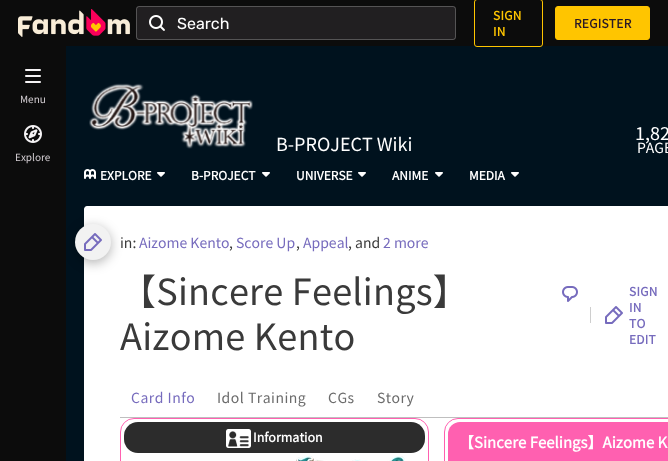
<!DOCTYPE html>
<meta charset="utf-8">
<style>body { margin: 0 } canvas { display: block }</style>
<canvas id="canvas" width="668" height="461"></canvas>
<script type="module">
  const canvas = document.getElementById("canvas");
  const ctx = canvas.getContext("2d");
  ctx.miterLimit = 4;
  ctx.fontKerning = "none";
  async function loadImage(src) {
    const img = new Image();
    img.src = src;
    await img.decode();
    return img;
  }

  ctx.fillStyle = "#00121e";
  ctx.fillRect(0, 0, 668, 461);
  ctx.fillStyle = "#0c0c0c";
  ctx.fillRect(0, 0, 668, 46);
  ctx.drawImage(await loadImage("img1.png"), 18, 9, 112, 28);
  ctx.fillStyle = "#211f21";
  ctx.beginPath();
  ctx.roundRect(136, 6, 320, 34, 3);
  ctx.fill();
  ctx.beginPath();
  ctx.roundRect(136.5, 6.5, 319, 33, 2.5);
  ctx.strokeStyle = "rgba(245, 243, 245, 0.25)";
  ctx.stroke();
  ctx.drawImage(await loadImage("img2.png"), 149, 15, 16, 16);
  ctx.font = "16px Rubik";
  ctx.fillStyle = "#ffffff";
  ctx.fillText("Search", 177, 29);
  ctx.beginPath();
  ctx.roundRect(474.5, -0.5, 68, 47, 2.5);
  ctx.strokeStyle = "#ffc500";
  ctx.stroke();
  ctx.letterSpacing = "0.25px";
  ctx.font = "bold 12px Noto Sans TC";
  ctx.fillStyle = "#ffc500";
  ctx.fillText("SIGN", 493, 20);
  ctx.fillText("IN", 493, 36);
  ctx.beginPath();
  ctx.roundRect(555.5, 6.5, 94, 33, 2.5);
  ctx.fill();
  ctx.stroke();
  ctx.fillStyle = "#291927";
  ctx.fillText("REGISTER", 574, 28);
  ctx.fillStyle = "#ffffff";
  ctx.beginPath();
  ctx.moveTo(87, 206);
  ctx.lineTo(668, 206);
  ctx.bezierCurveTo(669.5, 206, 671, 207.5, 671, 209);
  ctx.lineTo(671, 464);
  ctx.lineTo(84, 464);
  ctx.lineTo(84, 209);
  ctx.bezierCurveTo(84, 207.5, 85.5, 206, 87, 206);
  ctx.closePath();
  ctx.fill();
  ctx.fillStyle = "rgba(0, 0, 0, 0.3)";
  ctx.filter = "blur(6px)";
  ctx.beginPath();
  ctx.roundRect(75, 227, 36, 36, 18);
  ctx.fill();
  ctx.filter = "none";
  ctx.fillStyle = "#0c0c0c";
  ctx.fillRect(0, 46, 66, 415);
  ctx.drawImage(await loadImage("img3.png"), 25, 69, 16, 14);
  ctx.letterSpacing = "0px";
  ctx.font = "100 10px Noto Sans TC";
  ctx.fillStyle = "#d6d0d5";
  ctx.fillText("Menu", 20, 103);
  ctx.drawImage(await loadImage("img4.png"), 24, 125, 18, 18);
  ctx.fillText("Explore", 15, 161);
  ctx.drawImage(await loadImage("img5.png"), 89, 83, 164, 66);
  ctx.font = "100 18px Noto Sans TC";
  ctx.fillStyle = "#ffffff";
  ctx.fillText("B-PROJECT Wiki", 276, 151);
  ctx.fillText("1,82", 635, 140);
  ctx.font = "100 14px Noto Sans TC";
  ctx.fillText("PAGE", 637, 153);
  ctx.drawImage(await loadImage("img6.png"), 84, 169, 12, 10);
  ctx.font = "bold 12px Noto Sans TC";
  ctx.fillText("EXPLORE", 100, 180);
  ctx.drawImage(await loadImage("img7.png"), 157, 172, 8, 5);
  ctx.fillText("B-PROJECT", 191, 180);
  ctx.drawImage(await loadImage("img7.png"), 262, 172, 8, 5);
  ctx.fillText("UNIVERSE", 296, 180);
  ctx.drawImage(await loadImage("img7.png"), 358, 172, 8, 5);
  ctx.fillText("ANIME", 392, 180);
  ctx.drawImage(await loadImage("img7.png"), 435, 172, 8, 5);
  ctx.fillText("MEDIA", 469, 180);
  ctx.drawImage(await loadImage("img7.png"), 511, 172, 8, 5);
  ctx.fillStyle = "#f2f2f2";
  ctx.beginPath();
  ctx.arc(93, 242, 18, 0, Math.PI * 2);
  ctx.fill();
  ctx.drawImage(await loadImage("img8.png"), 84, 233, 18, 18);
  ctx.font = "100 14px Noto Sans TC";
  ctx.fillStyle = "#3a3a3a";
  ctx.fillText("in:", 120, 248);
  ctx.fillStyle = "#766bbd";
  ctx.fillText("Aizome Kento", 139, 248);
  ctx.fillStyle = "#3a3a3a";
  ctx.fillText(",", 229, 248);
  ctx.fillStyle = "#766bbd";
  ctx.fillText("Score Up", 236, 248);
  ctx.fillStyle = "#3a3a3a";
  ctx.fillText(",", 296, 248);
  ctx.fillStyle = "#766bbd";
  ctx.fillText("Appeal", 303, 248);
  ctx.fillStyle = "#3a3a3a";
  ctx.fillText(", and", 348, 248);
  ctx.fillStyle = "#766bbd";
  ctx.fillText("2 more", 383, 248);
  ctx.letterSpacing = "0.25px";
  ctx.font = "100 36px Noto Sans TC";
  ctx.fillStyle = "#3a3a3a";
  ctx.fillText("【Sincere Feelings】", 120, 305);
  ctx.fillText("Aizome Kento", 120, 350);
  ctx.drawImage(await loadImage("img9.png"), 562, 286, 16, 16);
  ctx.font = "bold 12px Noto Sans TC";
  ctx.fillStyle = "#766bbd";
  ctx.fillText("SIGN", 629, 296);
  ctx.fillStyle = "#cecece";
  ctx.fillRect(590, 307, 1, 16);
  ctx.drawImage(await loadImage("img10.png"), 605, 306, 18, 18);
  ctx.fillStyle = "#766bbd";
  ctx.fillText("IN", 629, 312);
  ctx.fillText("TO", 629, 328);
  ctx.fillText("EDIT", 629, 344);
  ctx.fillStyle = "#bfbfbf";
  ctx.fillRect(120, 417, 548, 1);
  ctx.letterSpacing = "0.5px";
  ctx.font = "100 14px Noto Sans TC";
  ctx.fillStyle = "#766bbd";
  ctx.fillText("Card Info", 131, 403);
  ctx.fillStyle = "#6b6b6b";
  ctx.fillText("Idol Training", 217, 403);
  ctx.fillText("CGs", 328, 403);
  ctx.fillText("Story", 377, 403);
  ctx.beginPath();
  ctx.roundRect(120.5, 418.5, 308, 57, 13.5);
  ctx.strokeStyle = "#ff60b0";
  ctx.stroke();
  ctx.fillStyle = "#2c2c2c";
  ctx.beginPath();
  ctx.roundRect(124, 422, 301, 31, 14);
  ctx.fill();
  ctx.drawImage(await loadImage("img11.png"), 226, 429, 25, 19);
  ctx.letterSpacing = "0px";
  ctx.font = "bold 12.5px Noto Sans TC";
  ctx.fillStyle = "#ffffff";
  ctx.fillText("Information", 253, 442);
  ctx.drawImage(await loadImage("img12.png"), 296, 456, 109, 5);
  ctx.beginPath();
  ctx.roundRect(444.5, 418.5, 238, 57, 13.5);
  ctx.stroke();
  ctx.fillStyle = "#ff60b0";
  ctx.beginPath();
  ctx.roundRect(448, 422, 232, 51, 12);
  ctx.fill();
  ctx.font = "bold 15px Noto Sans TC";
  ctx.fillStyle = "#ffffff";
  ctx.fillText("【Sincere Feelings】Aizome K", 459, 448);
</script>
